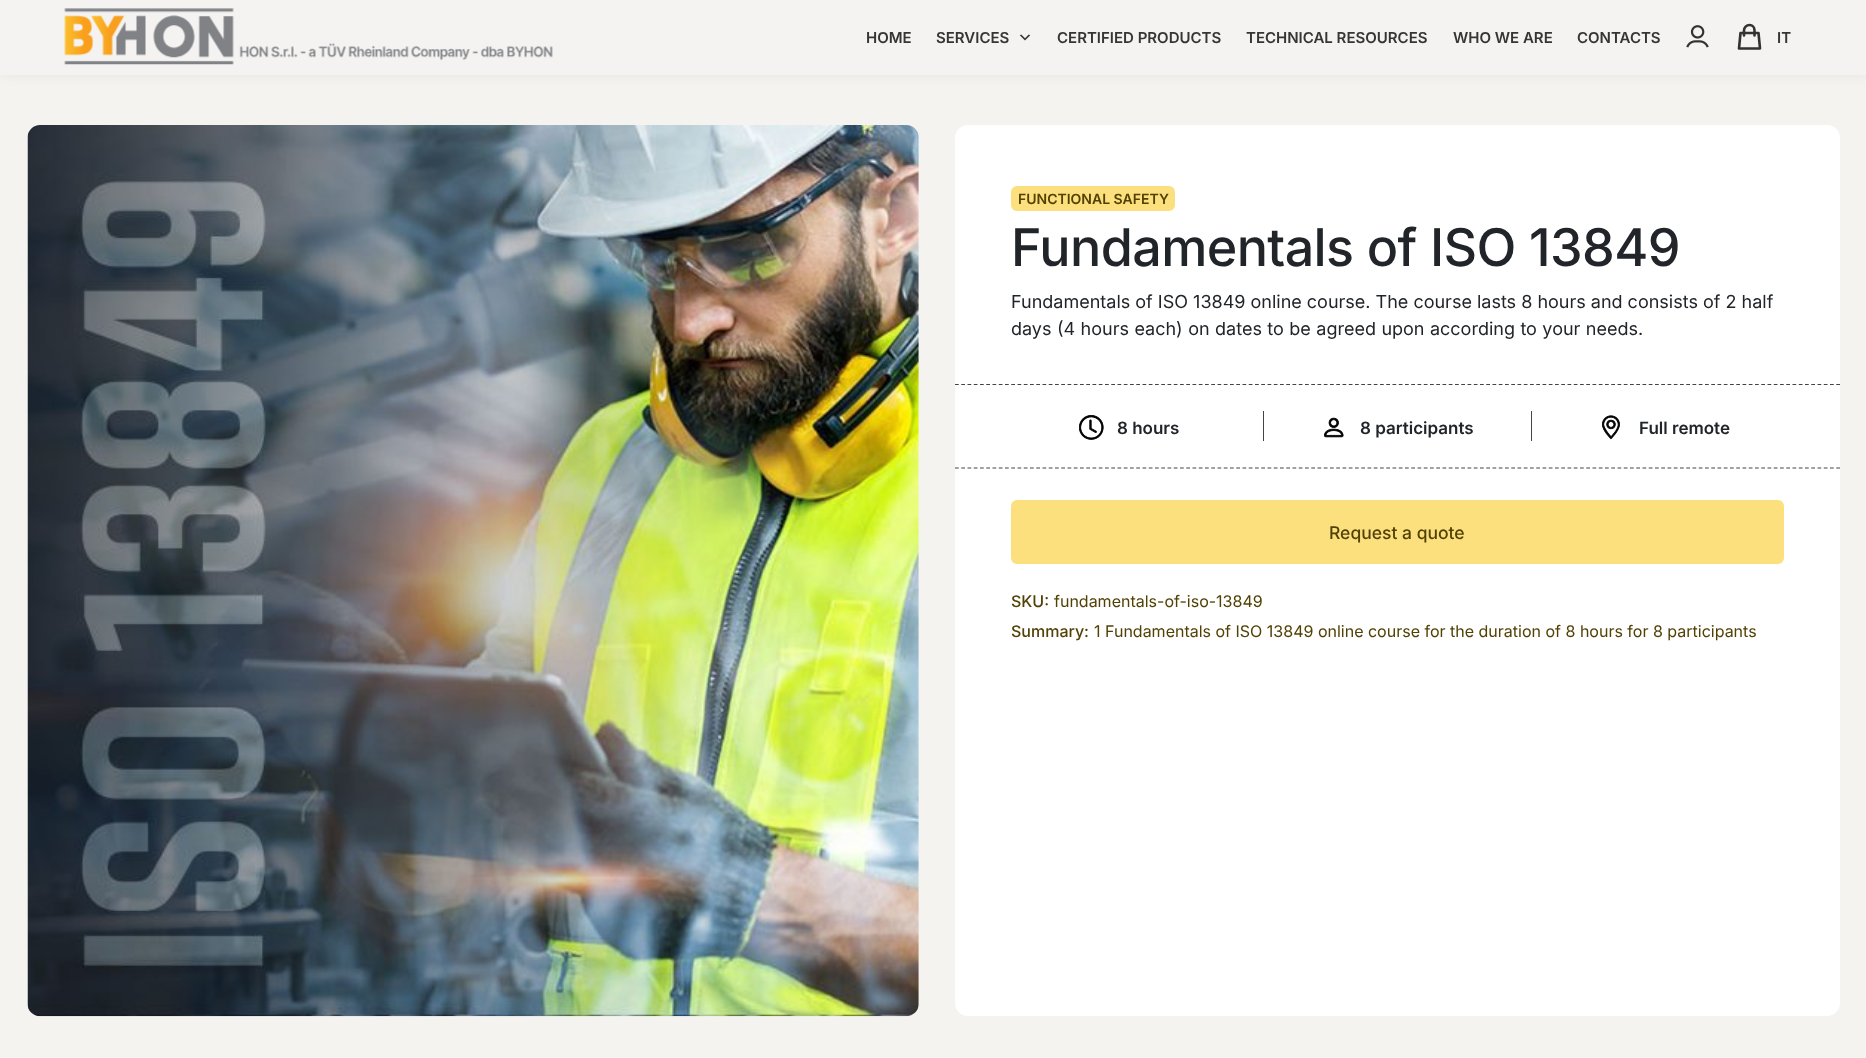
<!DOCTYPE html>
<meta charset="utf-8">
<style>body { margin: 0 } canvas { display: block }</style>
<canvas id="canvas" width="1866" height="1058"></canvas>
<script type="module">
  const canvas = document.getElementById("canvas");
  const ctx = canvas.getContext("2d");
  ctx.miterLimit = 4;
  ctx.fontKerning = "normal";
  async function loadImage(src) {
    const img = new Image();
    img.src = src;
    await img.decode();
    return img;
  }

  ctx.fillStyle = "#f5f3ef";
  ctx.fillRect(0, 0, 1866, 1058);
  ctx.fillStyle = "rgba(0, 0, 0, 0.05)";
  ctx.filter = "blur(6px)";
  ctx.beginPath();
  ctx.rect(1, 1, 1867, 75);
  ctx.fill();
  ctx.filter = "none";
  ctx.fillStyle = "#f4f3f2";
  ctx.fillRect(0, 0, 1866, 75);
  ctx.drawImage(await loadImage("img1.png"), 64, 8, 489, 57);
  ctx.font = "600 15px Inter";
  ctx.fillStyle = "#353535";
  ctx.fillText("HOME", 866, 43);
  ctx.fillText("SERVICES", 936, 43);
  ctx.drawImage(await loadImage("img2.png"), 1019, 34, 12, 7);
  ctx.fillText("CERTIFIED PRODUCTS", 1057, 43);
  ctx.fillText("TECHNICAL RESOURCES", 1246, 43);
  ctx.fillText("WHO WE ARE", 1453, 43);
  ctx.fillText("CONTACTS", 1577, 43);
  ctx.drawImage(await loadImage("img3.png"), 1686, 25, 23, 23);
  ctx.beginPath();
  ctx.moveTo(1754.5, 35.5);
  ctx.lineTo(1754.5, 30.5);
  ctx.bezierCurveTo(1754.5, 27.5, 1752.5, 25, 1749.5, 25);
  ctx.bezierCurveTo(1746.5, 25, 1744, 27.5, 1744, 30.5);
  ctx.lineTo(1744, 35.5);
  ctx.moveTo(1740.5, 33);
  ctx.lineTo(1758.5, 33);
  ctx.lineTo(1760, 48.5);
  ctx.lineTo(1739, 48.5);
  ctx.closePath();
  ctx.strokeStyle = "#323232";
  ctx.lineWidth = 2.6;
  ctx.lineCap = "round";
  ctx.lineJoin = "round";
  ctx.stroke();
  ctx.fillText("IT", 1777, 43);
  ctx.drawImage(await loadImage("img4.png"), 27, 125, 892, 892);
  ctx.fillStyle = "#ffffff";
  ctx.beginPath();
  ctx.roundRect(955, 125, 885, 891, 13);
  ctx.fill();
  ctx.fillStyle = "#fce07e";
  ctx.beginPath();
  ctx.roundRect(1011, 186, 164, 25, 6);
  ctx.fill();
  ctx.font = "600 14px Inter";
  ctx.fillStyle = "#524104";
  ctx.fillText("FUNCTIONAL SAFETY", 1018, 204);
  ctx.letterSpacing = "-0.6px";
  ctx.font = "500 52px Inter";
  ctx.fillStyle = "#212529";
  ctx.fillText("Fundamentals of ISO 13849", 1011, 266);
  ctx.letterSpacing = "0px";
  ctx.font = "18px Inter";
  ctx.fillText("Fundamentals of ISO 13849 online course. The course lasts 8 hours and consists of 2 half", 1011, 308);
  ctx.wordSpacing = "0.4px";
  ctx.fillText("days (4 hours each) on dates to be agreed upon according to your needs.", 1011, 335);
  ctx.beginPath();
  ctx.moveTo(955, 384.5);
  ctx.lineTo(1840, 384.5);
  ctx.strokeStyle = "#444444";
  ctx.lineWidth = 1.2;
  ctx.lineCap = "butt";
  ctx.lineJoin = "miter";
  ctx.setLineDash([3.75, 2.5]);
  ctx.stroke();
  ctx.fillStyle = "#444444";
  ctx.fillRect(1263, 411, 1, 30);
  ctx.drawImage(await loadImage("img5.png"), 1079, 415, 25, 25);
  ctx.wordSpacing = "0px";
  ctx.font = "600 17px Inter";
  ctx.fillStyle = "#212529";
  ctx.fillText("8 hours", 1117, 434);
  ctx.drawImage(await loadImage("img6.png"), 1324, 417, 20, 21);
  ctx.fillText("8 participants", 1360, 434);
  ctx.fillStyle = "#444444";
  ctx.fillRect(1531, 411, 1, 30);
  ctx.drawImage(await loadImage("img7.png"), 1601, 415, 19, 25);
  ctx.fillStyle = "#212529";
  ctx.fillText("Full remote", 1639, 434);
  ctx.beginPath();
  ctx.moveTo(955, 468);
  ctx.lineTo(1840, 468);
  ctx.stroke();
  ctx.fillStyle = "#fce07e";
  ctx.beginPath();
  ctx.roundRect(1011, 500, 773, 64, 6);
  ctx.fill();
  ctx.font = "500 17.5px Inter";
  ctx.fillStyle = "#524104";
  ctx.fillText("Request a quote", 1329, 539);
  ctx.font = "500 16px Inter";
  ctx.fillText("SKU:", 1011, 607);
  ctx.font = "16px Inter";
  ctx.fillText("fundamentals-of-iso-13849", 1054, 607);
  ctx.font = "500 16px Inter";
  ctx.fillText("Summary:", 1011, 637);
  ctx.font = "16px Inter";
  ctx.fillText("1 Fundamentals of ISO 13849 online course for the duration of 8 hours for 8 participants", 1094, 637);
</script>
